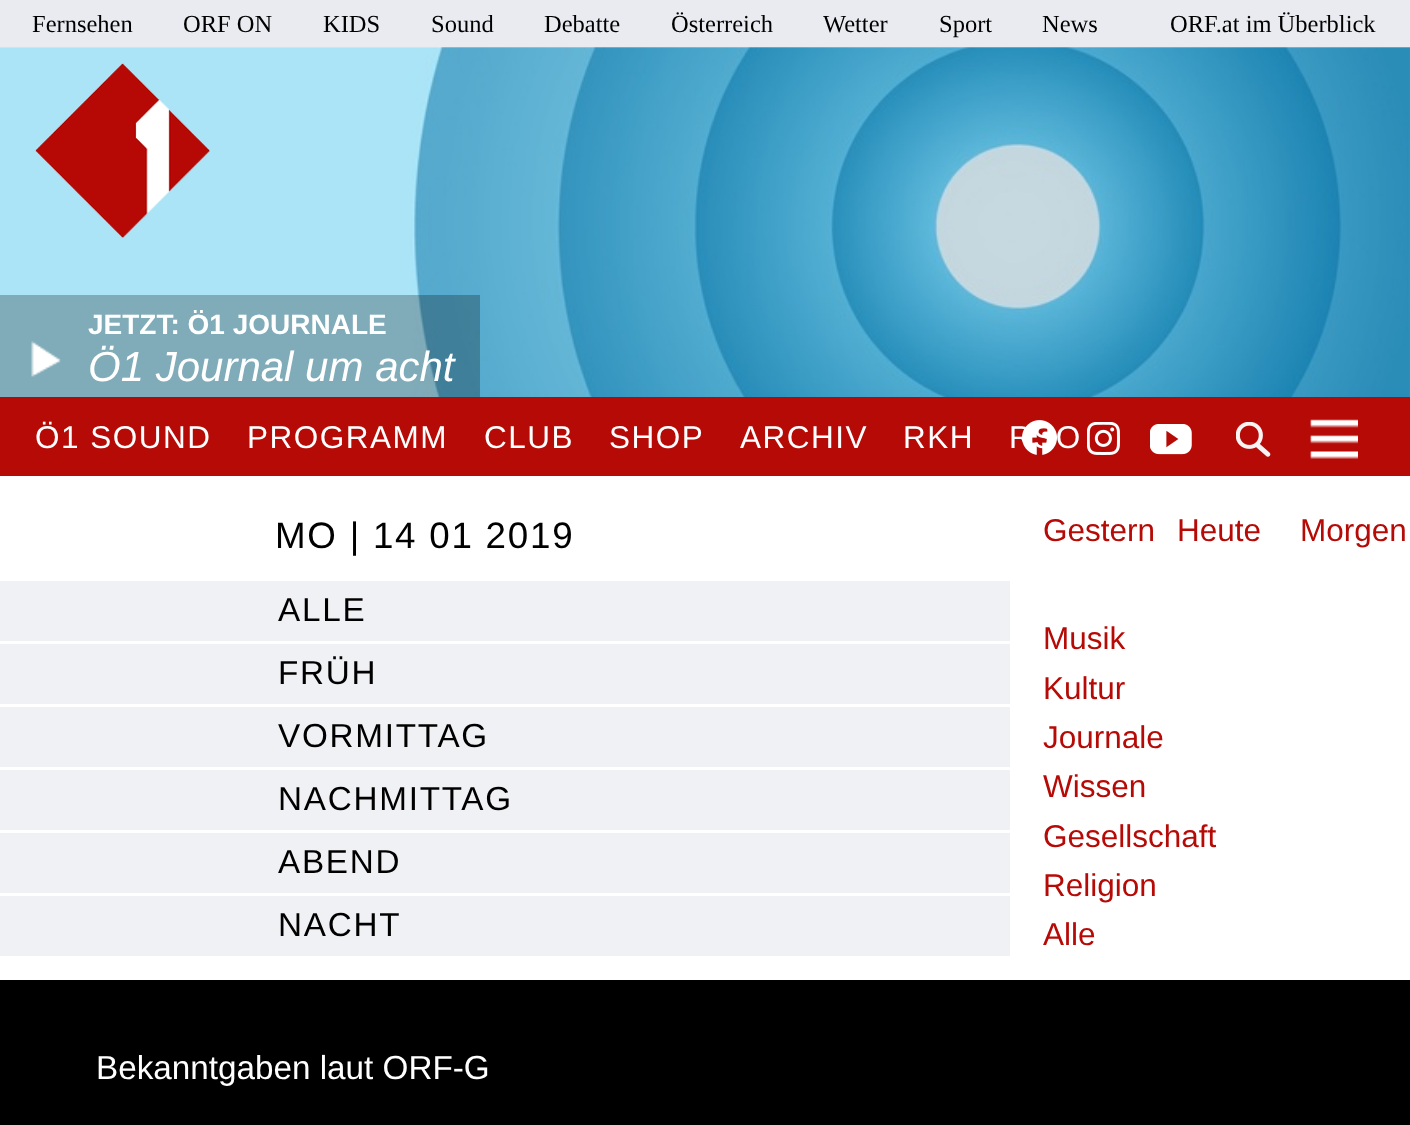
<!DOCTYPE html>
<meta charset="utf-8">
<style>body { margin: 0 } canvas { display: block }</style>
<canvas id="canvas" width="1410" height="1125"></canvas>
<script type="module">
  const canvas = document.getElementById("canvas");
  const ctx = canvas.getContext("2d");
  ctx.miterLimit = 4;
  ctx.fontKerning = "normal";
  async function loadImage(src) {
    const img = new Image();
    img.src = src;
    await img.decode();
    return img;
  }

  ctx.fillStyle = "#ffffff";
  ctx.fillRect(0, 0, 1410, 1125);
  ctx.fillStyle = "#e9ebf0";
  ctx.fillRect(0, 0, 1410, 47);
  ctx.font = "24.5px Liberation Serif";
  ctx.fillStyle = "#000000";
  ctx.fillText("Fernsehen", 32, 32);
  ctx.fillText("ORF ON", 183, 32);
  ctx.fillText("KIDS", 323, 32);
  ctx.fillText("Sound", 431, 32);
  ctx.fillText("Debatte", 544, 32);
  ctx.fillText("Österreich", 671, 32);
  ctx.fillText("Wetter", 823, 32);
  ctx.fillText("Sport", 939, 32);
  ctx.fillText("News", 1042, 32);
  ctx.fillText("ORF.at im Überblick", 1170, 32);
  ctx.drawImage(await loadImage("img2.png"), 0, 47, 1410, 350);
  ctx.drawImage(await loadImage("img1.png"), 35, 63, 175, 175);
  ctx.fillStyle = "rgba(0, 0, 0, 0.25)";
  ctx.fillRect(0, 295, 480, 102);
  ctx.font = "bold 28px Liberation Sans";
  ctx.fillStyle = "#ffffff";
  ctx.fillText("JETZT: Ö1 JOURNALE", 88, 334);
  ctx.drawImage(await loadImage("img3.png"), 31, 341, 30, 36);
  ctx.font = "italic 42px Liberation Sans";
  ctx.fillText("Ö1 Journal um acht", 88, 381);
  ctx.fillStyle = "#b60a06";
  ctx.fillRect(0, 397, 1410, 79);
  ctx.letterSpacing = "1.5px";
  ctx.font = "31.5px Liberation Sans";
  ctx.fillStyle = "#ffffff";
  ctx.fillText("Ö1 SOUND", 35, 448);
  ctx.fillText("PROGRAMM", 247, 448);
  ctx.fillText("CLUB", 484, 448);
  ctx.fillText("SHOP", 609, 448);
  ctx.fillText("ARCHIV", 740, 448);
  ctx.fillText("RKH", 903, 448);
  ctx.fillText("RSO", 1009, 448);
  ctx.drawImage(await loadImage("img4.png"), 1022, 420, 35, 35);
  ctx.drawImage(await loadImage("img5.png"), 1087, 422, 33, 33);
  ctx.drawImage(await loadImage("img6.png"), 1150, 424, 42, 31);
  ctx.drawImage(await loadImage("img7.png"), 1236, 422, 35, 35);
  ctx.drawImage(await loadImage("img8.png"), 1310, 419, 48, 40);
  ctx.fillStyle = "#f0f1f4";
  ctx.fillRect(0, 581, 1010, 60);
  ctx.letterSpacing = "1.75px";
  ctx.font = "36.75px Liberation Sans";
  ctx.fillStyle = "#000000";
  ctx.fillText("MO | 14 01 2019", 275, 548);
  ctx.font = "33.25px Liberation Sans";
  ctx.fillText("ALLE", 278, 621);
  ctx.fillStyle = "#f0f1f4";
  ctx.fillRect(0, 644, 1010, 60);
  ctx.fillStyle = "#000000";
  ctx.fillText("FRÜH", 278, 684);
  ctx.fillStyle = "#f0f1f4";
  ctx.fillRect(0, 707, 1010, 60);
  ctx.fillStyle = "#000000";
  ctx.fillText("VORMITTAG", 278, 747);
  ctx.fillStyle = "#f0f1f4";
  ctx.fillRect(0, 770, 1010, 60);
  ctx.fillStyle = "#000000";
  ctx.fillText("NACHMITTAG", 278, 810);
  ctx.fillStyle = "#f0f1f4";
  ctx.fillRect(0, 833, 1010, 60);
  ctx.fillStyle = "#000000";
  ctx.fillText("ABEND", 278, 873);
  ctx.fillStyle = "#f0f1f4";
  ctx.fillRect(0, 896, 1010, 60);
  ctx.fillStyle = "#000000";
  ctx.fillText("NACHT", 278, 936);
  ctx.letterSpacing = "0px";
  ctx.font = "31.5px Liberation Sans";
  ctx.fillStyle = "#b60a06";
  ctx.fillText("Gestern", 1043, 541);
  ctx.fillText("Heute", 1177, 541);
  ctx.fillText("Morgen", 1300, 541);
  ctx.fillText("Musik", 1043, 649);
  ctx.fillText("Kultur", 1043, 699);
  ctx.fillText("Journale", 1043, 748);
  ctx.fillText("Wissen", 1043, 797);
  ctx.fillText("Gesellschaft", 1043, 847);
  ctx.fillText("Religion", 1043, 896);
  ctx.fillText("Alle", 1043, 945);
  ctx.fillStyle = "#000000";
  ctx.fillRect(0, 980, 1410, 145);
  ctx.font = "33.25px Liberation Sans";
  ctx.fillStyle = "#ffffff";
  ctx.fillText("Bekanntgaben laut ORF-G", 96, 1079);
</script>
